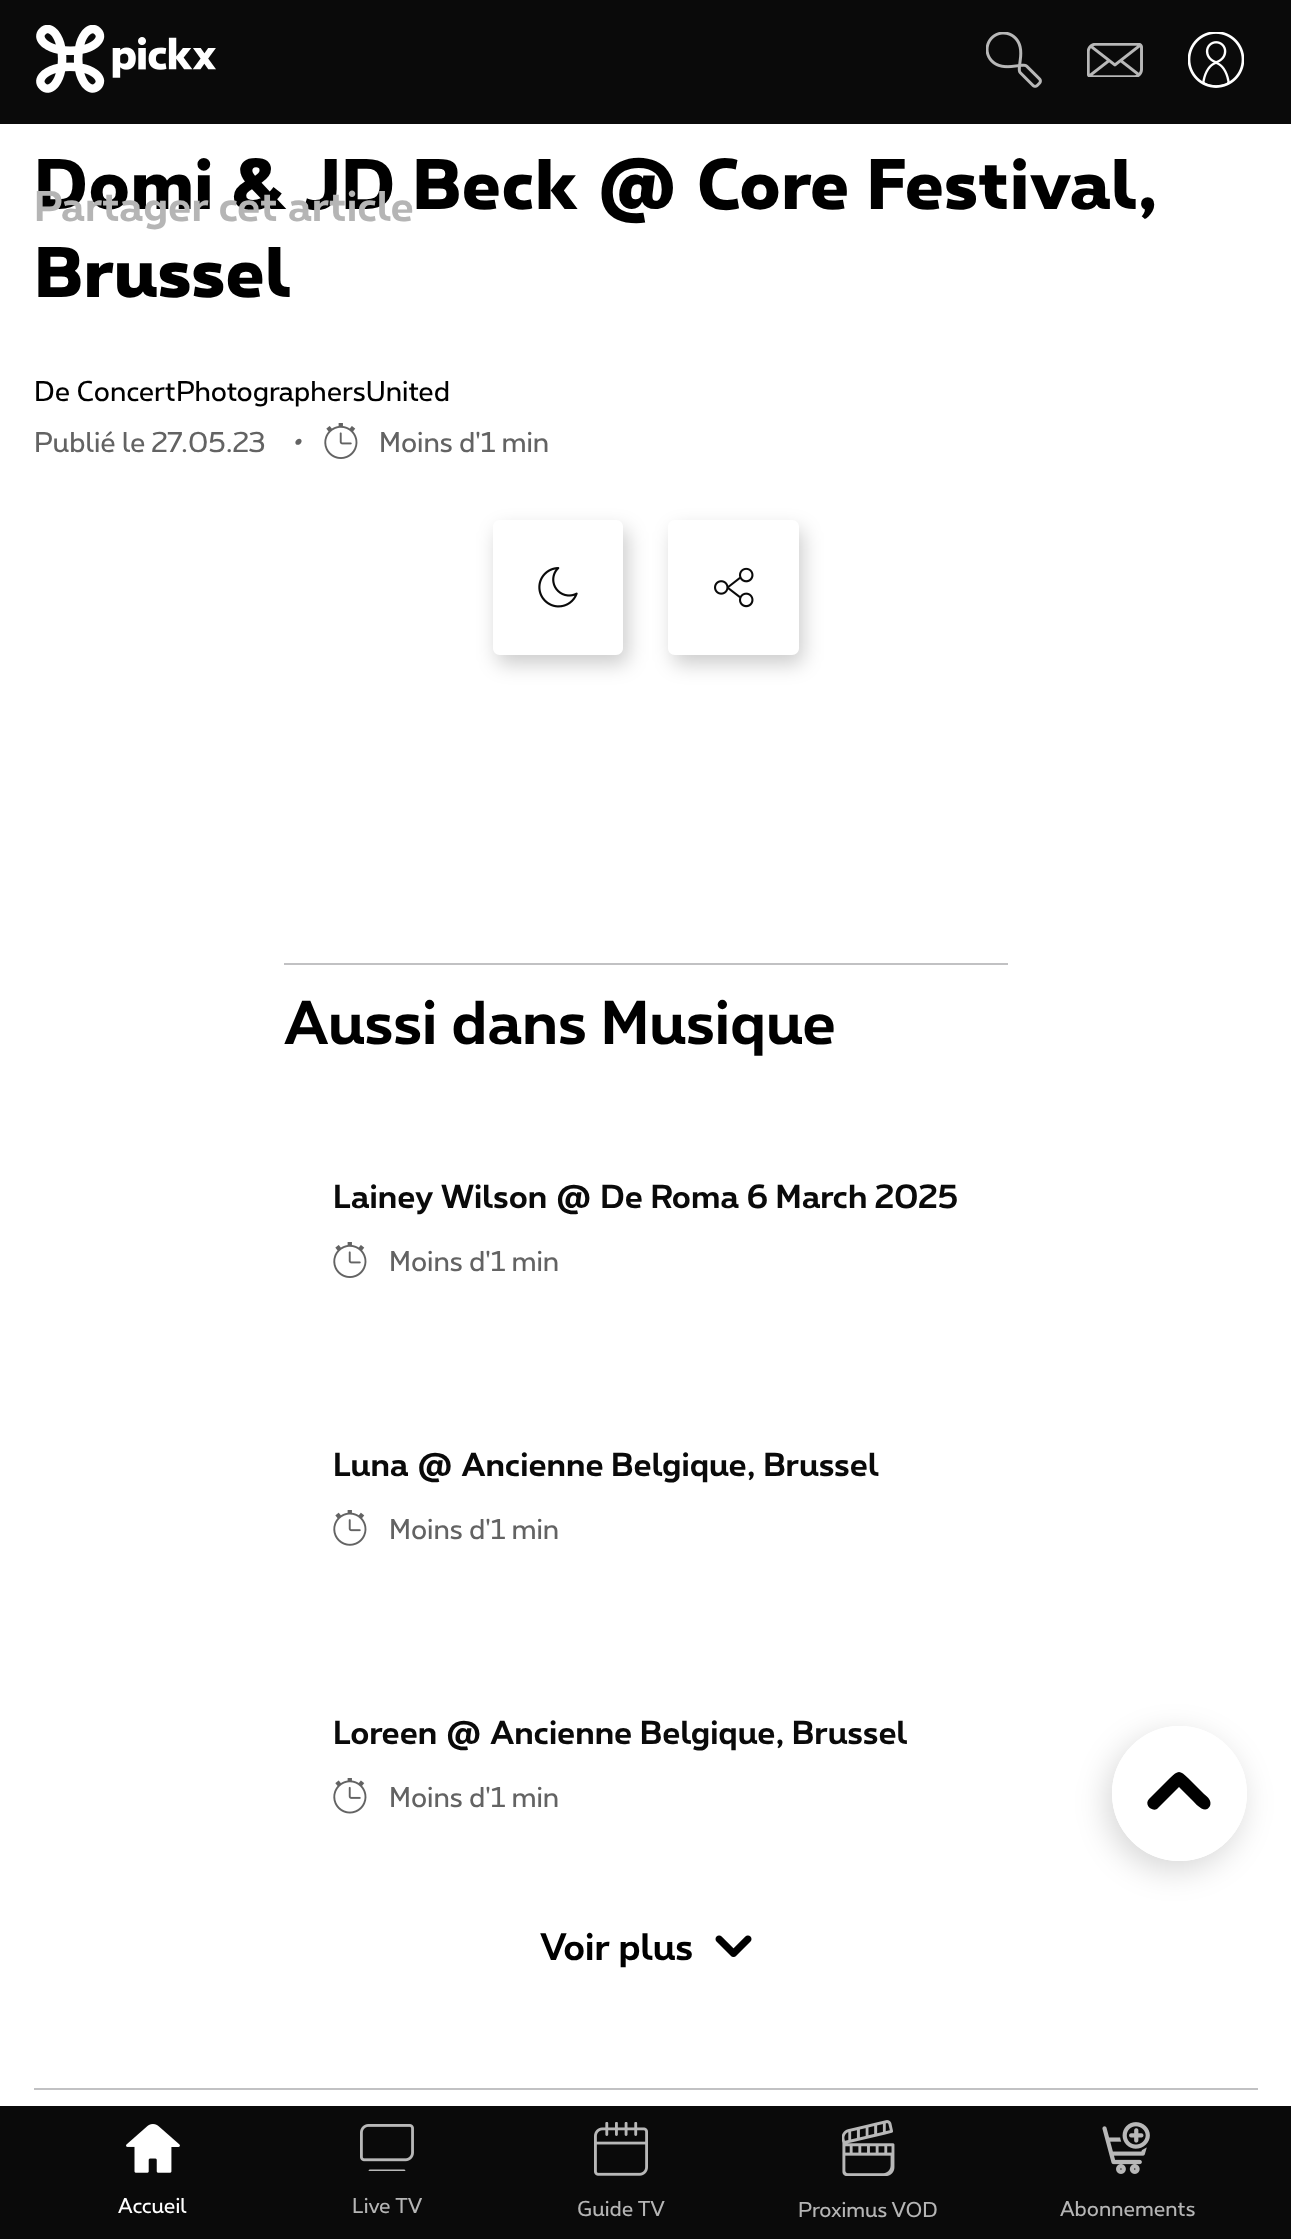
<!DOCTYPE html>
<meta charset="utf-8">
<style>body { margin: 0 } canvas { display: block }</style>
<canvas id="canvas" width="1291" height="2239"></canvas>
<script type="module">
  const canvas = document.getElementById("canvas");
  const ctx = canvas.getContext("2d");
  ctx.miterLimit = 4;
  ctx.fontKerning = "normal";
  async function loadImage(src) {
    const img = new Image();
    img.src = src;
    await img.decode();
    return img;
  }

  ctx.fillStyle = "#0a0a0a";
  ctx.fillRect(0, 0, 1291, 2239);
  ctx.fillStyle = "#ffffff";
  ctx.fillRect(0, 124, 1291, 1982);
  ctx.font = "800 67.5px 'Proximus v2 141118'";
  ctx.fillStyle = "#000000";
  ctx.fillText("Domi & JD Beck @ Core Festival,", 34, 209);
  ctx.fillText("Brussel", 34, 297);
  ctx.font = "27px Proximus";
  ctx.fillText("De ConcertPhotographersUnited", 34, 401);
  ctx.fillStyle = "#636363";
  ctx.fillText("Publié le 27.05.23", 34, 452);
  ctx.font = "italic 27px Proximus";
  ctx.fillText("•", 291, 452);
  ctx.drawImage(await loadImage("img1.png"), 324, 423, 34, 36);
  ctx.font = "27px Proximus";
  ctx.fillText("Moins d'1 min", 379, 452);
  ctx.save();
  ctx.beginPath();
  ctx.moveTo(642, 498);
  ctx.lineTo(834, 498);
  ctx.lineTo(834, 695);
  ctx.lineTo(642, 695);
  ctx.closePath();
  ctx.moveTo(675, 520);
  ctx.lineTo(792, 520);
  ctx.bezierCurveTo(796, 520, 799, 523, 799, 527);
  ctx.lineTo(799, 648);
  ctx.bezierCurveTo(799, 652, 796, 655, 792, 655);
  ctx.lineTo(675, 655);
  ctx.bezierCurveTo(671, 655, 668, 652, 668, 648);
  ctx.lineTo(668, 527);
  ctx.bezierCurveTo(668, 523, 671, 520, 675, 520);
  ctx.closePath();
  ctx.clip("evenodd");
  ctx.fillStyle = "rgba(0, 0, 0, 0.2)";
  ctx.filter = "blur(10px)";
  ctx.beginPath();
  ctx.roundRect(673, 529, 130, 135, 7);
  ctx.fill();
  ctx.filter = "none";
  ctx.restore();
  ctx.font = "bold 40.5px Proximus";
  ctx.fillStyle = "#b5b5b5";
  ctx.fillText("Partager cet article", 34, 221);
  ctx.drawImage(await loadImage("img2.png"), 714, 567, 40, 41);
  ctx.save();
  ctx.beginPath();
  ctx.moveTo(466, 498);
  ctx.lineTo(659, 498);
  ctx.lineTo(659, 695);
  ctx.lineTo(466, 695);
  ctx.closePath();
  ctx.moveTo(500, 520);
  ctx.lineTo(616, 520);
  ctx.bezierCurveTo(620, 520, 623, 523, 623, 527);
  ctx.lineTo(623, 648);
  ctx.bezierCurveTo(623, 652, 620, 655, 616, 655);
  ctx.lineTo(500, 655);
  ctx.bezierCurveTo(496, 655, 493, 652, 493, 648);
  ctx.lineTo(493, 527);
  ctx.bezierCurveTo(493, 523, 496, 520, 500, 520);
  ctx.closePath();
  ctx.clip("evenodd");
  ctx.fillStyle = "rgba(0, 0, 0, 0.2)";
  ctx.filter = "blur(10px)";
  ctx.beginPath();
  ctx.roundRect(497, 529, 131, 135, 7);
  ctx.fill();
  ctx.filter = "none";
  ctx.restore();
  ctx.drawImage(await loadImage("img3.png"), 538, 567, 40, 41);
  ctx.fillStyle = "#c1c1c3";
  ctx.fillRect(284, 963, 724, 2);
  ctx.font = "bold 58.5px Proximus";
  ctx.fillStyle = "#000000";
  ctx.fillText("Aussi dans Musique", 284, 1044);
  ctx.font = "bold 31.5px Proximus";
  ctx.fillStyle = "#0a0a0a";
  ctx.fillText("Lainey Wilson @ De Roma 6 March 2025", 333, 1208);
  ctx.drawImage(await loadImage("img1.png"), 333, 1242, 34, 36);
  ctx.font = "27px Proximus";
  ctx.fillStyle = "#636363";
  ctx.fillText("Moins d'1 min", 389, 1271);
  ctx.font = "bold 31.5px Proximus";
  ctx.fillStyle = "#0a0a0a";
  ctx.fillText("Luna @ Ancienne Belgique, Brussel", 333, 1476);
  ctx.drawImage(await loadImage("img4.png"), 333, 1510, 34, 36);
  ctx.font = "27px Proximus";
  ctx.fillStyle = "#636363";
  ctx.fillText("Moins d'1 min", 389, 1539);
  ctx.font = "bold 31.5px Proximus";
  ctx.fillStyle = "#0a0a0a";
  ctx.fillText("Loreen @ Ancienne Belgique, Brussel", 333, 1744);
  ctx.drawImage(await loadImage("img5.png"), 333, 1778, 34, 36);
  ctx.font = "27px Proximus";
  ctx.fillStyle = "#636363";
  ctx.fillText("Moins d'1 min", 389, 1807);
  ctx.font = "bold 36px Proximus";
  ctx.fillStyle = "#000000";
  ctx.fillText("Voir plus", 540, 1960);
  ctx.drawImage(await loadImage("img6.png"), 715, 1935, 37, 22);
  ctx.fillStyle = "#c1c1c3";
  ctx.fillRect(34, 2088, 1224, 2);
  ctx.save();
  ctx.beginPath();
  ctx.moveTo(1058, 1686);
  ctx.lineTo(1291, 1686);
  ctx.lineTo(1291, 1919);
  ctx.lineTo(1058, 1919);
  ctx.closePath();
  ctx.moveTo(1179.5, 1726);
  ctx.bezierCurveTo(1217, 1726, 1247, 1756, 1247, 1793.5);
  ctx.bezierCurveTo(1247, 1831, 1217, 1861, 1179.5, 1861);
  ctx.bezierCurveTo(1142, 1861, 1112, 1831, 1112, 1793.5);
  ctx.bezierCurveTo(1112, 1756, 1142, 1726, 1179.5, 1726);
  ctx.closePath();
  ctx.clip("evenodd");
  ctx.fillStyle = "rgba(0, 0, 0, 0.16)";
  ctx.filter = "blur(16px)";
  ctx.beginPath();
  ctx.roundRect(1107, 1735, 135, 135, 67.5);
  ctx.fill();
  ctx.filter = "none";
  ctx.restore();
  ctx.beginPath();
  ctx.arc(1179.5, 1793.5, 65, 0, Math.PI * 2);
  ctx.strokeStyle = "#ffffff";
  ctx.lineWidth = 5;
  ctx.stroke();
  ctx.fillStyle = "#000000";
  ctx.beginPath();
  ctx.moveTo(1149, 1799);
  ctx.lineTo(1170, 1778);
  ctx.bezierCurveTo(1178, 1770, 1180, 1770, 1188, 1778);
  ctx.lineTo(1204, 1794);
  ctx.bezierCurveTo(1208, 1797, 1212, 1801, 1210, 1806);
  ctx.bezierCurveTo(1205, 1815, 1196, 1804, 1193, 1801);
  ctx.lineTo(1179, 1787);
  ctx.lineTo(1157, 1809);
  ctx.bezierCurveTo(1151, 1812, 1144, 1804, 1149, 1799);
  ctx.closePath();
  ctx.fill();
  ctx.drawImage(await loadImage("img7.png"), 36, 25, 180, 68);
  ctx.drawImage(await loadImage("img8.png"), 986, 32, 56, 56);
  ctx.drawImage(await loadImage("img9.png"), 1087, 43, 56, 34);
  ctx.drawImage(await loadImage("img10.png"), 1188, 32, 56, 56);
  ctx.drawImage(await loadImage("img11.png"), 126, 2124, 54, 49);
  ctx.font = "20.25px Proximus";
  ctx.fillStyle = "#ffffff";
  ctx.fillText("Accueil", 118, 2213);
  ctx.drawImage(await loadImage("img12.png"), 360, 2124, 54, 47);
  ctx.fillStyle = "#b5b5b5";
  ctx.fillText("Live TV", 352, 2213);
  ctx.drawImage(await loadImage("img13.png"), 594, 2122, 54, 54);
  ctx.fillText("Guide TV", 577, 2216);
  ctx.drawImage(await loadImage("img14.png"), 842, 2120, 53, 56);
  ctx.fillText("Proximus VOD", 798, 2217);
  ctx.drawImage(await loadImage("img15.png"), 1102, 2122, 48, 52);
  ctx.fillText("Abonnements", 1060, 2216);
</script>
